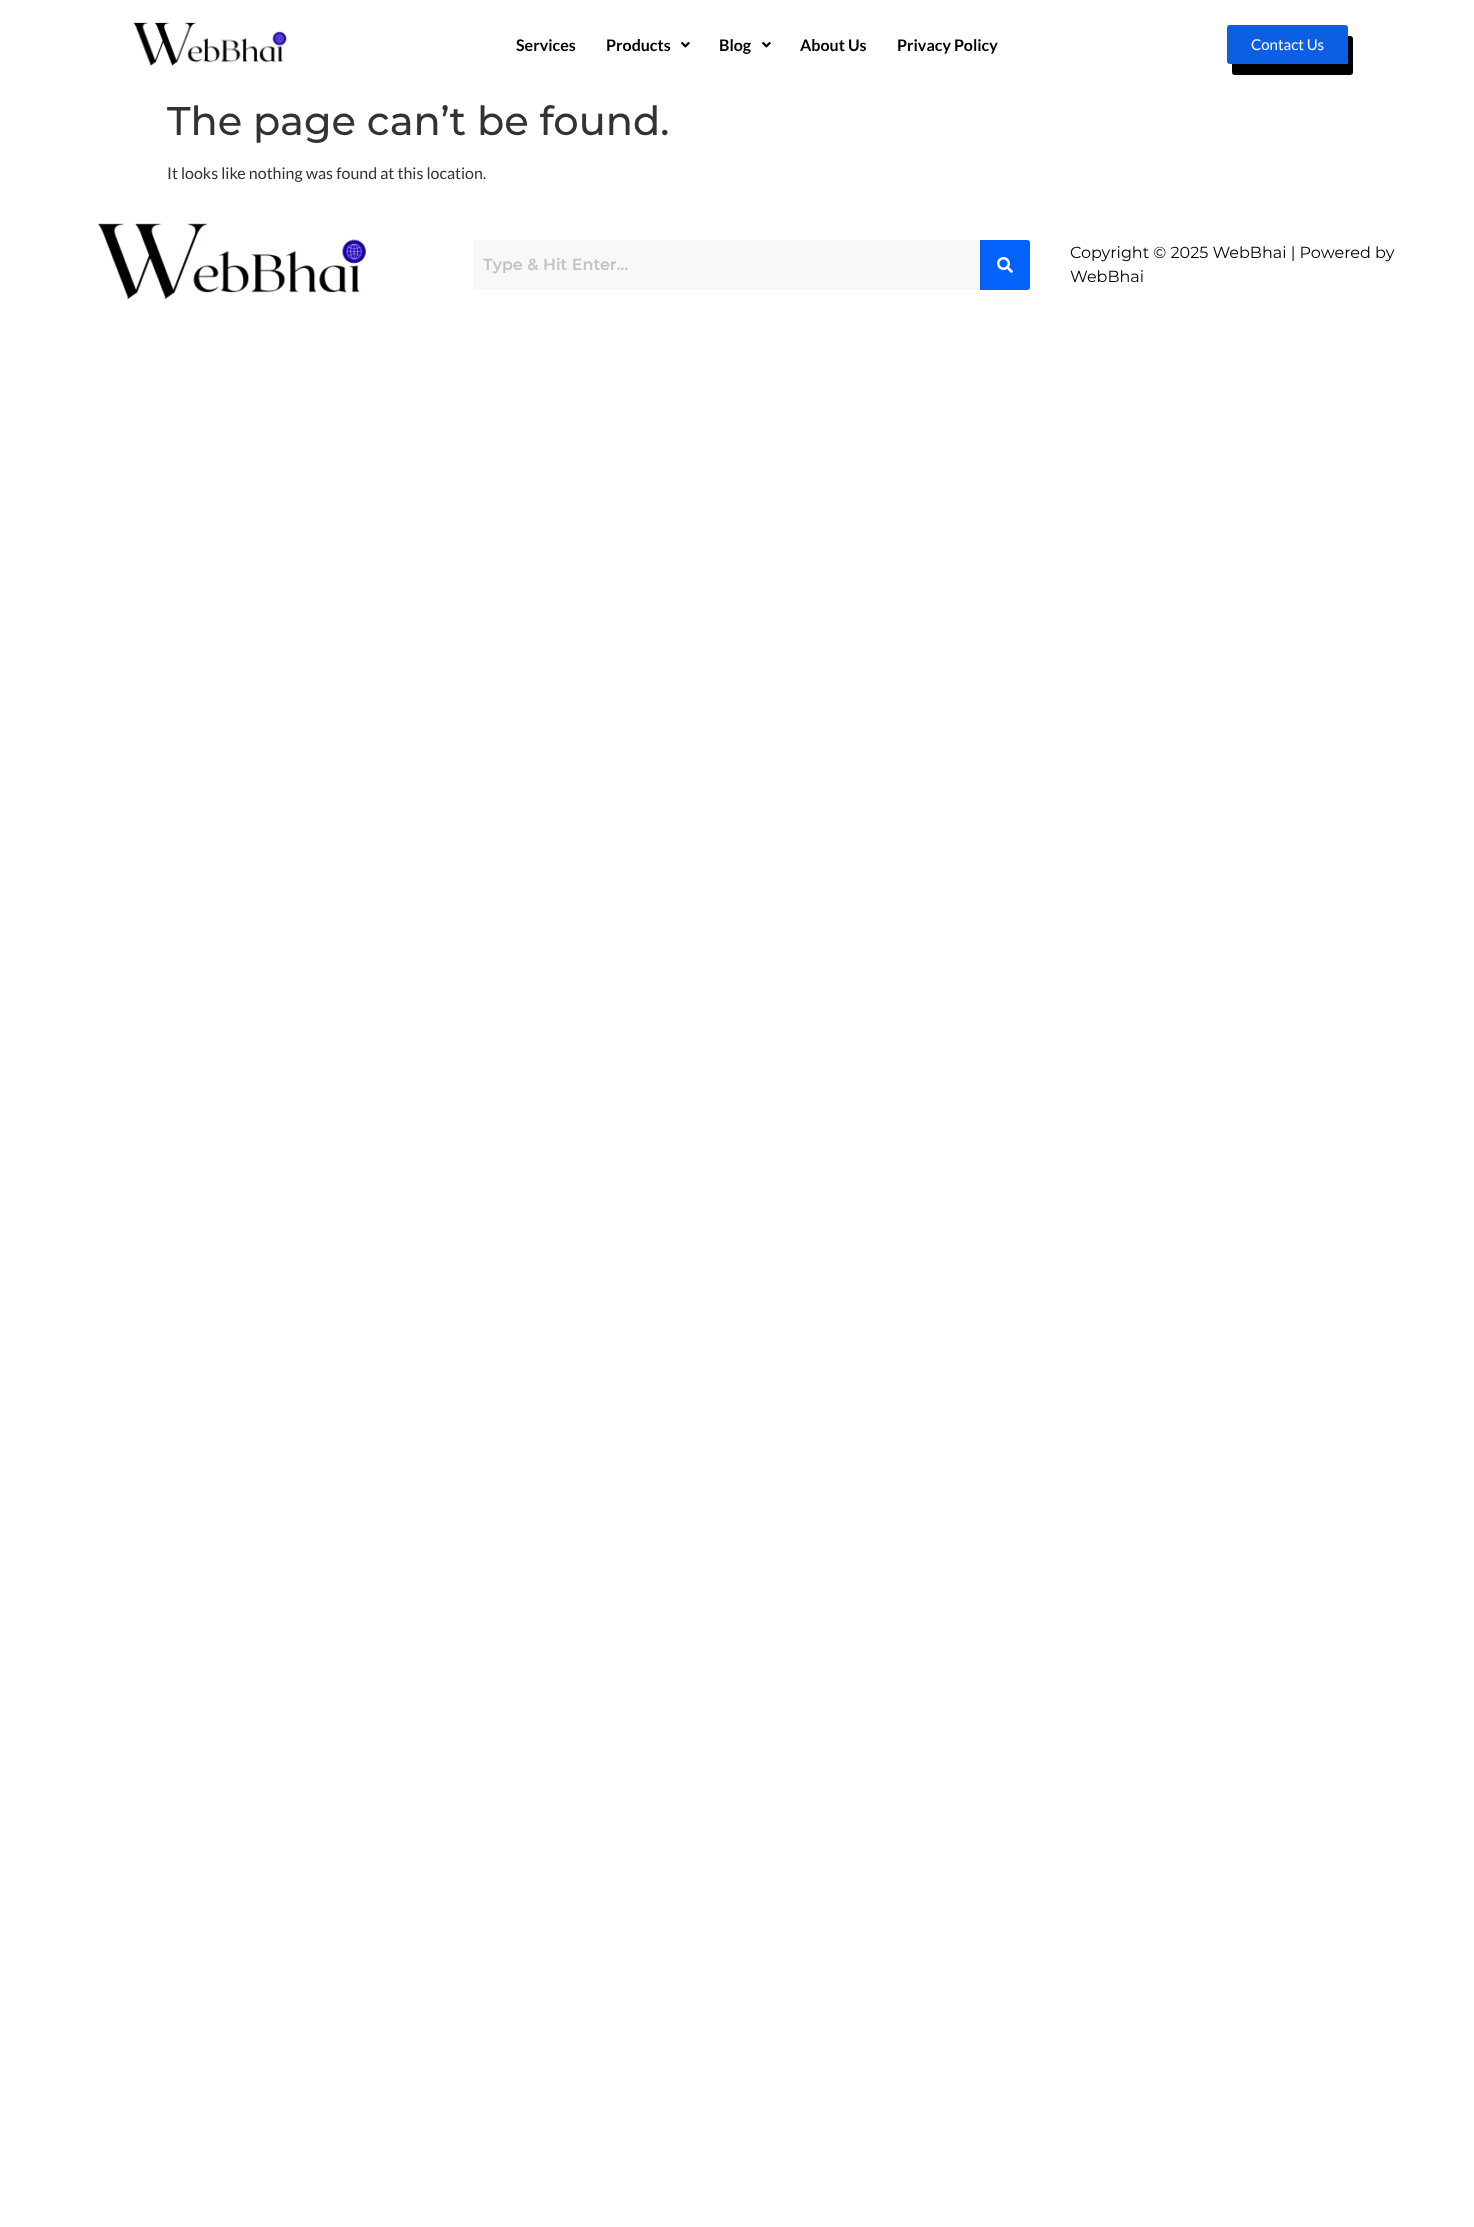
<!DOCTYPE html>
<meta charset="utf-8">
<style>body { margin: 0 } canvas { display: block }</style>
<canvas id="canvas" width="1474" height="2227"></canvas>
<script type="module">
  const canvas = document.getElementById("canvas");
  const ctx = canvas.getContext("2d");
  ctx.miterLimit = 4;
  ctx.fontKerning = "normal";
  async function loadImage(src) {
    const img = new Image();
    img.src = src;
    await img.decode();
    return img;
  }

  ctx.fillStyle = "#ffffff";
  ctx.fillRect(0, 0, 1474, 2227);
  ctx.drawImage(await loadImage("img1.png"), 133, 22, 154, 44);
  ctx.font = "bold 16px Lato";
  ctx.fillStyle = "#000000";
  ctx.fillText("Services", 516, 51);
  ctx.fillText("Products", 606, 51);
  ctx.drawImage(await loadImage("img2.png"), 681, 42, 9, 6);
  ctx.fillText("Blog", 719, 51);
  ctx.drawImage(await loadImage("img2.png"), 762, 42, 9, 6);
  ctx.fillText("About Us", 800, 51);
  ctx.fillText("Privacy Policy", 897, 51);
  ctx.beginPath();
  ctx.moveTo(1232, 64);
  ctx.lineTo(1232, 72);
  ctx.bezierCurveTo(1232, 74, 1233, 75, 1235, 75);
  ctx.lineTo(1350, 75);
  ctx.bezierCurveTo(1352, 75, 1353, 74, 1353, 72);
  ctx.lineTo(1353, 39);
  ctx.bezierCurveTo(1353, 37, 1352, 36, 1350, 36);
  ctx.lineTo(1348, 36);
  ctx.lineTo(1348, 61);
  ctx.bezierCurveTo(1348, 63, 1347, 64, 1345, 64);
  ctx.closePath();
  ctx.fill();
  ctx.fillStyle = "#0c5ee2";
  ctx.beginPath();
  ctx.roundRect(1227, 25, 121, 39, 3);
  ctx.fill();
  ctx.font = "15px Lato";
  ctx.fillStyle = "#ffffff";
  ctx.fillText("Contact Us", 1251, 50);
  ctx.font = "500 40px Montserrat";
  ctx.fillStyle = "#333333";
  ctx.fillText("The page can’t be found.", 167, 135);
  ctx.font = "16px Lato";
  ctx.fillText("It looks like nothing was found at this location.", 167, 179);
  ctx.drawImage(await loadImage("img3.png"), 98, 223, 268, 76);
  ctx.fillStyle = "#f8f8f8";
  ctx.beginPath();
  ctx.roundRect(473, 240, 507, 50, [3, 0, 0, 3]);
  ctx.fill();
  ctx.font = "600 16px Montserrat";
  ctx.fillStyle = "#c3c3c3";
  ctx.fillText("Type & Hit Enter...", 483, 270);
  ctx.fillStyle = "#0362fc";
  ctx.beginPath();
  ctx.roundRect(980, 240, 50, 50, [0, 3, 3, 0]);
  ctx.fill();
  ctx.drawImage(await loadImage("img4.png"), 997, 257, 16, 16);
  ctx.font = "16px Montserrat";
  ctx.fillStyle = "#000000";
  ctx.fillText("Copyright © 2025 WebBhai | Powered by", 1070, 258);
  ctx.fillText("WebBhai", 1070, 282);
</script>
